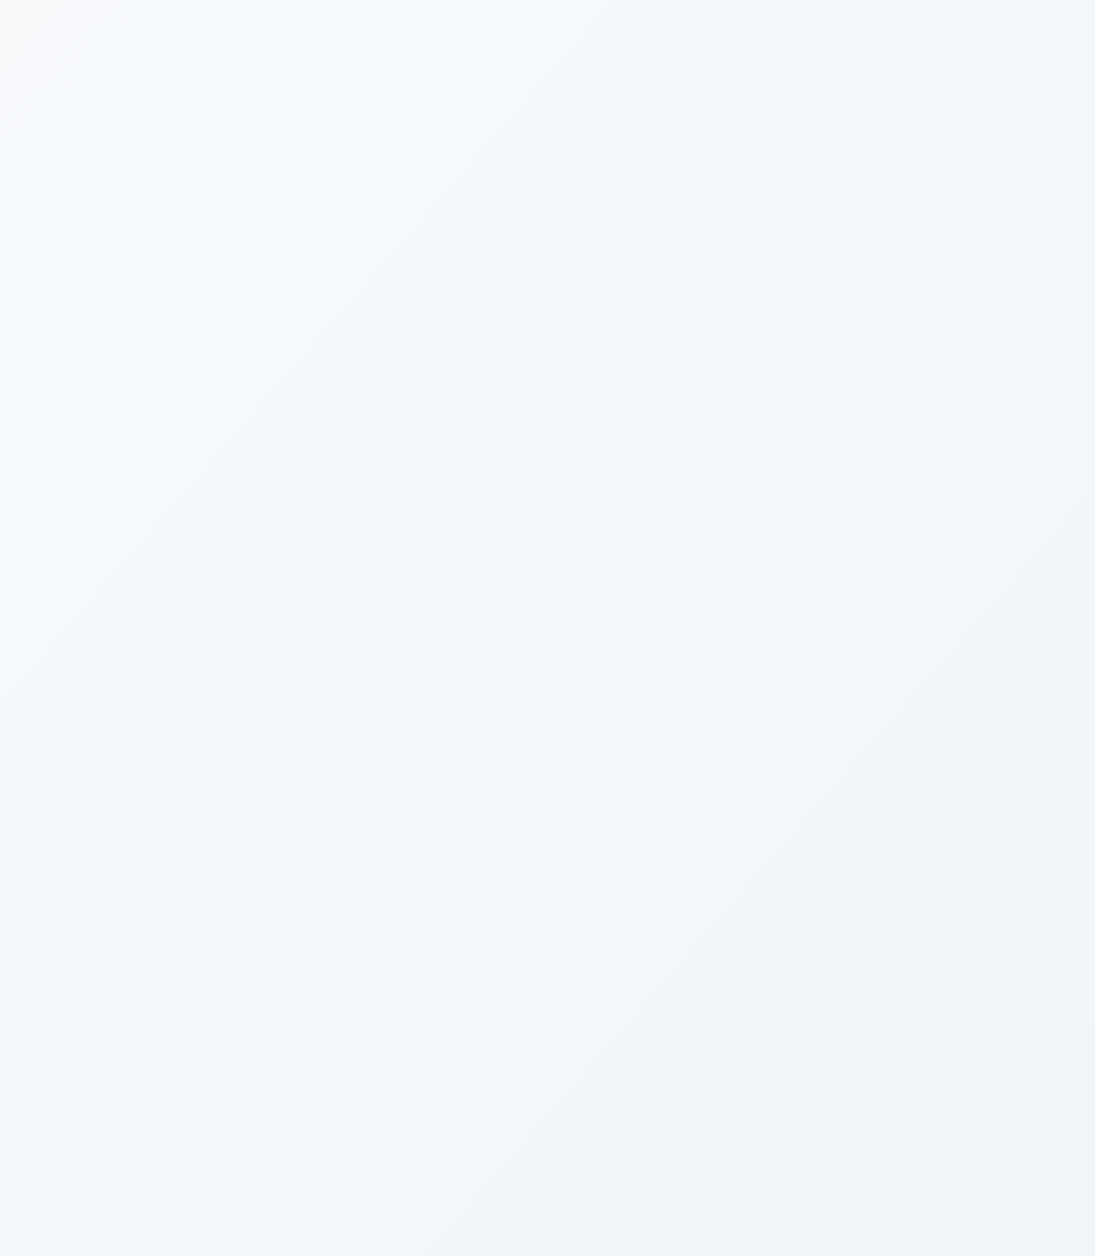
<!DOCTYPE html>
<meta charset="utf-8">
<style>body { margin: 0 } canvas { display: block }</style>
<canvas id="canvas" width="1095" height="1256"></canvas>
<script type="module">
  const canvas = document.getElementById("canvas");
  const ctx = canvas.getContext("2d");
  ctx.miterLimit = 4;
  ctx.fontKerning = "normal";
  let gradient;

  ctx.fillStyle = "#ffffff";
  ctx.fillRect(0, 0, 1095, 1256);
  gradient = ctx.createLinearGradient(-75, 86, 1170, 1170);
  gradient.addColorStop(0, "#f8fafc");
  gradient.addColorStop(1, "#f1f5f9");
  ctx.fillStyle = gradient;
  ctx.fillRect(0, 0, 1095, 1256);
</script>
